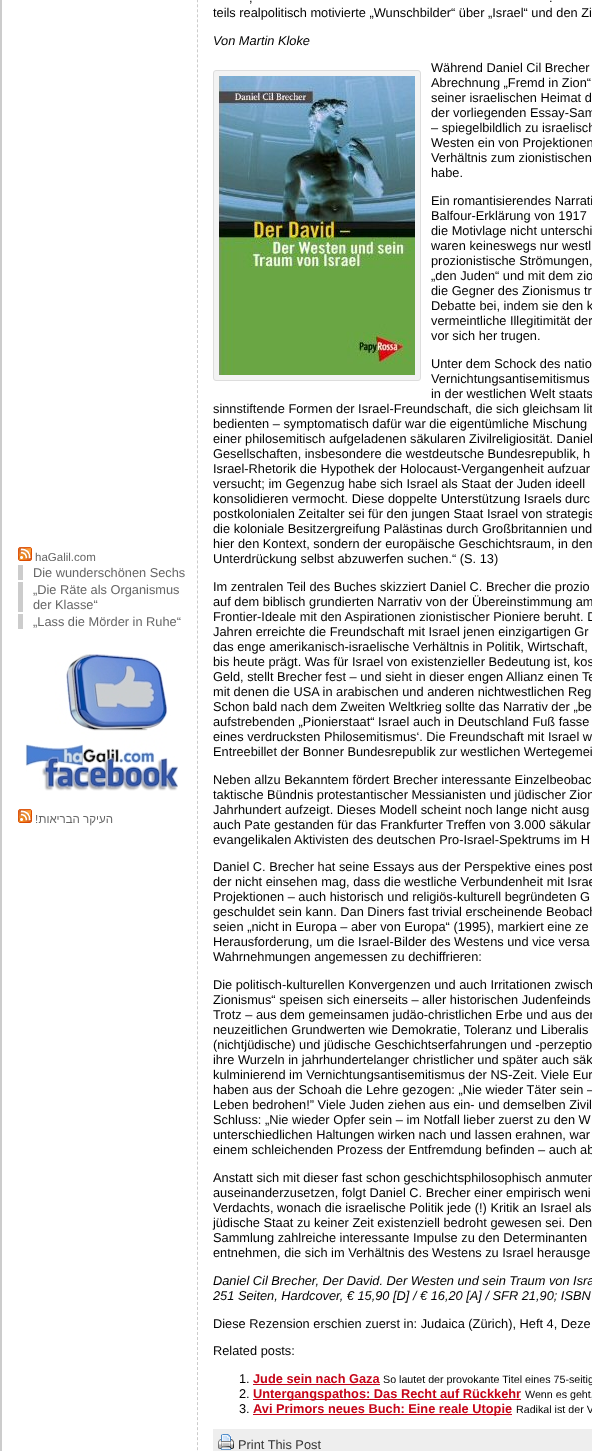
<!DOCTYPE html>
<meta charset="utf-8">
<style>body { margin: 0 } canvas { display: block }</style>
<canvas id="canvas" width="592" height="1451"></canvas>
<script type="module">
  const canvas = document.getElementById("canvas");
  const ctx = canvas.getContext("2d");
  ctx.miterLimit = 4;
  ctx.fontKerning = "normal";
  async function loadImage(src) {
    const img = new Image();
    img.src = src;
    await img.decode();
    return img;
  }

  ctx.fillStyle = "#ffffff";
  ctx.fillRect(0, 0, 592, 1451);
  ctx.strokeStyle = "#cccccc";
  ctx.lineWidth = 2;
  ctx.strokeRect(1, -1, 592, 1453);
  ctx.beginPath();
  ctx.moveTo(197.5, -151);
  ctx.lineTo(197.5, 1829);
  ctx.lineWidth = 1;
  ctx.setLineDash([3, 2.01]);
  ctx.stroke();
  ctx.drawImage(await loadImage("img1.png"), 18, 547, 14, 14);
  ctx.font = "11.5px Liberation Sans";
  ctx.fillStyle = "#666666";
  ctx.fillText("haGalil.com", 35, 561);
  ctx.fillStyle = "#cccccc";
  ctx.fillRect(18, 565, 5, 15);
  ctx.font = "12.8px Liberation Sans";
  ctx.fillStyle = "#666666";
  ctx.fillText("Die wunderschönen Sechs", 33, 577);
  ctx.fillStyle = "#cccccc";
  ctx.fillRect(18, 582, 5, 30);
  ctx.fillStyle = "#666666";
  ctx.fillText("„Die Räte als Organismus", 33, 594);
  ctx.fillText("der Klasse“", 33, 609);
  ctx.fillStyle = "#cccccc";
  ctx.fillRect(18, 614, 5, 15);
  ctx.fillStyle = "#666666";
  ctx.fillText("„Lass die Mörder in Ruhe“", 33, 626);
  ctx.drawImage(await loadImage("img2.png"), 25, 654, 153, 137);
  ctx.drawImage(await loadImage("img1.png"), 18, 809, 14, 14);
  ctx.font = "11.5px Liberation Sans";
  ctx.fillText("!", 35, 823);
  ctx.direction = "rtl";
  ctx.fillText("העיקר הבריאות", 113, 823);
  ctx.direction = "ltr";
  ctx.font = "12.8px Liberation Sans";
  ctx.fillStyle = "#000000";
  ctx.fillText(",", 249, 2);
  ctx.fillText(".", 549, 2);
  ctx.fillText("teils realpolitisch motivierte „Wunschbilder“ über „Israel“ und den Zi", 213, 17);
  ctx.font = "italic 12.8px Liberation Sans";
  ctx.fillText("Von Martin Kloke", 213, 45);
  ctx.font = "12.8px Liberation Sans";
  ctx.fillText("Während Daniel Cil Brecher", 431, 72);
  ctx.fillStyle = "#f3f3f3";
  ctx.beginPath();
  ctx.roundRect(213.5, 70.5, 207, 310, 2.5);
  ctx.fill();
  ctx.strokeStyle = "#dddddd";
  ctx.setLineDash([]);
  ctx.stroke();
  ctx.drawImage(await loadImage("img3.png"), 219, 76, 196, 299);
  ctx.fillStyle = "#000000";
  ctx.fillText("Abrechnung „Fremd in Zion“", 431, 87);
  ctx.fillText("seiner israelischen Heimat d", 431, 102);
  ctx.fillText("der vorliegenden Essay-Sam", 431, 117);
  ctx.fillText("– spiegelbildlich zu israelisch", 431, 132);
  ctx.fillText("Westen ein von Projektionen", 431, 147);
  ctx.fillText("Verhältnis zum zionistischen", 431, 162);
  ctx.fillText("habe.", 431, 177);
  ctx.fillText("Ein romantisierendes Narrati", 431, 205);
  ctx.fillText("Balfour-Erklärung von 1917", 431, 220);
  ctx.fillText("die Motivlage nicht unterschi", 431, 235);
  ctx.fillText("waren keineswegs nur westl", 431, 250);
  ctx.fillText("prozionistische Strömungen,", 431, 265);
  ctx.fillText("„den Juden“ und mit dem zio", 431, 280);
  ctx.fillText("die Gegner des Zionismus tr", 431, 295);
  ctx.fillText("Debatte bei, indem sie den k", 431, 310);
  ctx.fillText("vermeintliche Illegitimität der", 431, 325);
  ctx.fillText("vor sich her trugen.", 431, 340);
  ctx.fillText("Unter dem Schock des natio", 431, 368);
  ctx.fillText("Vernichtungsantisemitismus", 431, 383);
  ctx.fillText("in der westlichen Welt staats", 431, 398);
  ctx.fillText("sinnstiftende Formen der Israel-Freundschaft, die sich gleichsam lit", 213, 413);
  ctx.fillText("bedienten – symptomatisch dafür war die eigentümliche Mischung", 213, 428);
  ctx.fillText("einer philosemitisch aufgeladenen säkularen Zivilreligiosität. Daniel", 213, 443);
  ctx.fillText("Gesellschaften, insbesondere die westdeutsche Bundesrepublik, h", 213, 458);
  ctx.fillText("Israel-Rhetorik die Hypothek der Holocaust-Vergangenheit aufzuar", 213, 473);
  ctx.fillText("versucht; im Gegenzug habe sich Israel als Staat der Juden ideell", 213, 488);
  ctx.fillText("konsolidieren vermocht. Diese doppelte Unterstützung Israels durc", 213, 503);
  ctx.fillText("postkolonialen Zeitalter sei für den jungen Staat Israel von strategis", 213, 518);
  ctx.fillText("die koloniale Besitzergreifung Palästinas durch Großbritannien und", 213, 533);
  ctx.fillText("hier den Kontext, sondern der europäische Geschichtsraum, in dem", 213, 548);
  ctx.fillText("Unterdrückung selbst abzuwerfen suchen.“ (S. 13)", 213, 563);
  ctx.fillText("Im zentralen Teil des Buches skizziert Daniel C. Brecher die prozio", 213, 591);
  ctx.fillText("auf dem biblisch grundierten Narrativ von der Übereinstimmung am", 213, 606);
  ctx.fillText("Frontier-Ideale mit den Aspirationen zionistischer Pioniere beruht. D", 213, 621);
  ctx.fillText("Jahren erreichte die Freundschaft mit Israel jenen einzigartigen Gr", 213, 636);
  ctx.fillText("das enge amerikanisch-israelische Verhältnis in Politik, Wirtschaft,", 213, 651);
  ctx.fillText("bis heute prägt. Was für Israel von existenzieller Bedeutung ist, kos", 213, 666);
  ctx.fillText("Geld, stellt Brecher fest – und sieht in dieser engen Allianz einen Te", 213, 681);
  ctx.fillText("mit denen die USA in arabischen und anderen nichtwestlichen Reg", 213, 696);
  ctx.fillText("Schon bald nach dem Zweiten Weltkrieg sollte das Narrativ der „be", 213, 711);
  ctx.fillText("aufstrebenden „Pionierstaat“ Israel auch in Deutschland Fuß fasse", 213, 726);
  ctx.fillText("eines verdrucksten Philosemitismus‘. Die Freundschaft mit Israel w", 213, 741);
  ctx.fillText("Entreebillet der Bonner Bundesrepublik zur westlichen Wertegemei", 213, 756);
  ctx.fillText("Neben allzu Bekanntem fördert Brecher interessante Einzelbeobac", 213, 784);
  ctx.fillText("taktische Bündnis protestantischer Messianisten und jüdischer Zion", 213, 799);
  ctx.fillText("Jahrhundert aufzeigt. Dieses Modell scheint noch lange nicht ausg", 213, 814);
  ctx.fillText("auch Pate gestanden für das Frankfurter Treffen von 3.000 säkular", 213, 829);
  ctx.fillText("evangelikalen Aktivisten des deutschen Pro-Israel-Spektrums im H", 213, 844);
  ctx.fillText("Daniel C. Brecher hat seine Essays aus der Perspektive eines post", 213, 871);
  ctx.fillText("der nicht einsehen mag, dass die westliche Verbundenheit mit Israe", 213, 886);
  ctx.fillText("Projektionen – auch historisch und religiös-kulturell begründeten G", 213, 901);
  ctx.fillText("geschuldet sein kann. Dan Diners fast trivial erscheinende Beobach", 213, 916);
  ctx.fillText("seien „nicht in Europa – aber von Europa“ (1995), markiert eine ze", 213, 931);
  ctx.fillText("Herausforderung, um die Israel-Bilder des Westens und vice versa", 213, 946);
  ctx.fillText("Wahrnehmungen angemessen zu dechiffrieren:", 213, 961);
  ctx.fillText("Die politisch-kulturellen Konvergenzen und auch Irritationen zwisch", 213, 989);
  ctx.fillText("Zionismus“ speisen sich einerseits – aller historischen Judenfeinds", 213, 1004);
  ctx.fillText("Trotz – aus dem gemeinsamen judäo-christlichen Erbe und aus der", 213, 1019);
  ctx.fillText("neuzeitlichen Grundwerten wie Demokratie, Toleranz und Liberalis", 213, 1034);
  ctx.fillText("(nichtjüdische) und jüdische Geschichtserfahrungen und -perzeptio", 213, 1049);
  ctx.fillText("ihre Wurzeln in jahrhundertelanger christlicher und später auch säk", 213, 1064);
  ctx.fillText("kulminierend im Vernichtungsantisemitismus der NS-Zeit. Viele Eur", 213, 1079);
  ctx.fillText("haben aus der Schoah die Lehre gezogen: „Nie wieder Täter sein –", 213, 1094);
  ctx.fillText("Leben bedrohen!” Viele Juden ziehen aus ein- und demselben Zivil", 213, 1109);
  ctx.fillText("Schluss: „Nie wieder Opfer sein – im Notfall lieber zuerst zu den W", 213, 1124);
  ctx.fillText("unterschiedlichen Haltungen wirken nach und lassen erahnen, war", 213, 1139);
  ctx.fillText("einem schleichenden Prozess der Entfremdung befinden – auch ab", 213, 1154);
  ctx.fillText("Anstatt sich mit dieser fast schon geschichtsphilosophisch anmuten", 213, 1182);
  ctx.fillText("auseinanderzusetzen, folgt Daniel C. Brecher einer empirisch weni", 213, 1197);
  ctx.fillText("Verdachts, wonach die israelische Politik jede (!) Kritik an Israel als", 213, 1212);
  ctx.fillText("jüdische Staat zu keiner Zeit existenziell bedroht gewesen sei. Den", 213, 1227);
  ctx.fillText("Sammlung zahlreiche interessante Impulse zu den Determinanten", 213, 1242);
  ctx.fillText("entnehmen, die sich im Verhältnis des Westens zu Israel herausge", 213, 1257);
  ctx.font = "italic 12.8px Liberation Sans";
  ctx.fillText("Daniel Cil Brecher, Der David. Der Westen und sein Traum von Isra", 213, 1285);
  ctx.fillText("251 Seiten, Hardcover, € 15,90 [D] / € 16,20 [A] / SFR 21,90; ISBN", 213, 1300);
  ctx.font = "12.8px Liberation Sans";
  ctx.fillText("Diese Rezension erschien zuerst in: Judaica (Zürich), Heft 4, Deze", 213, 1328);
  ctx.fillText("Related posts:", 213, 1355);
  ctx.fillText("1.", 239, 1383);
  ctx.font = "bold 12.8px Liberation Sans";
  ctx.fillStyle = "#c60417";
  ctx.fillText("Jude sein nach Gaza", 253, 1383);
  ctx.fillRect(253, 1384, 127, 1);
  ctx.font = "10.7px Liberation Sans";
  ctx.fillStyle = "#000000";
  ctx.fillText("So lautet der provokante Titel eines 75-seitig", 383, 1383);
  ctx.font = "12.8px Liberation Sans";
  ctx.fillText("2.", 239, 1398);
  ctx.fillStyle = "#c60417";
  ctx.fillRect(253, 1399, 268, 1);
  ctx.font = "bold 12.8px Liberation Sans";
  ctx.fillText("Untergangspathos: Das Recht auf Rückkehr", 253, 1398);
  ctx.font = "10.7px Liberation Sans";
  ctx.fillStyle = "#000000";
  ctx.fillText("Wenn es geht,", 525, 1398);
  ctx.font = "12.8px Liberation Sans";
  ctx.fillText("3.", 239, 1413);
  ctx.fillStyle = "#c60417";
  ctx.fillRect(253, 1414, 259, 1);
  ctx.font = "bold 12.8px Liberation Sans";
  ctx.fillText("Avi Primors neues Buch: Eine reale Utopie", 253, 1413);
  ctx.font = "10.7px Liberation Sans";
  ctx.fillStyle = "#000000";
  ctx.fillText("Radikal ist der V", 516, 1413);
  ctx.fillStyle = "#eeeeee";
  ctx.fillRect(213, 1429, 379, 22);
  ctx.drawImage(await loadImage("img4.png"), 218, 1434, 16, 16);
  ctx.font = "12.8px Liberation Sans";
  ctx.fillStyle = "#333333";
  ctx.fillText("Print This Post", 238, 1449);
</script>
